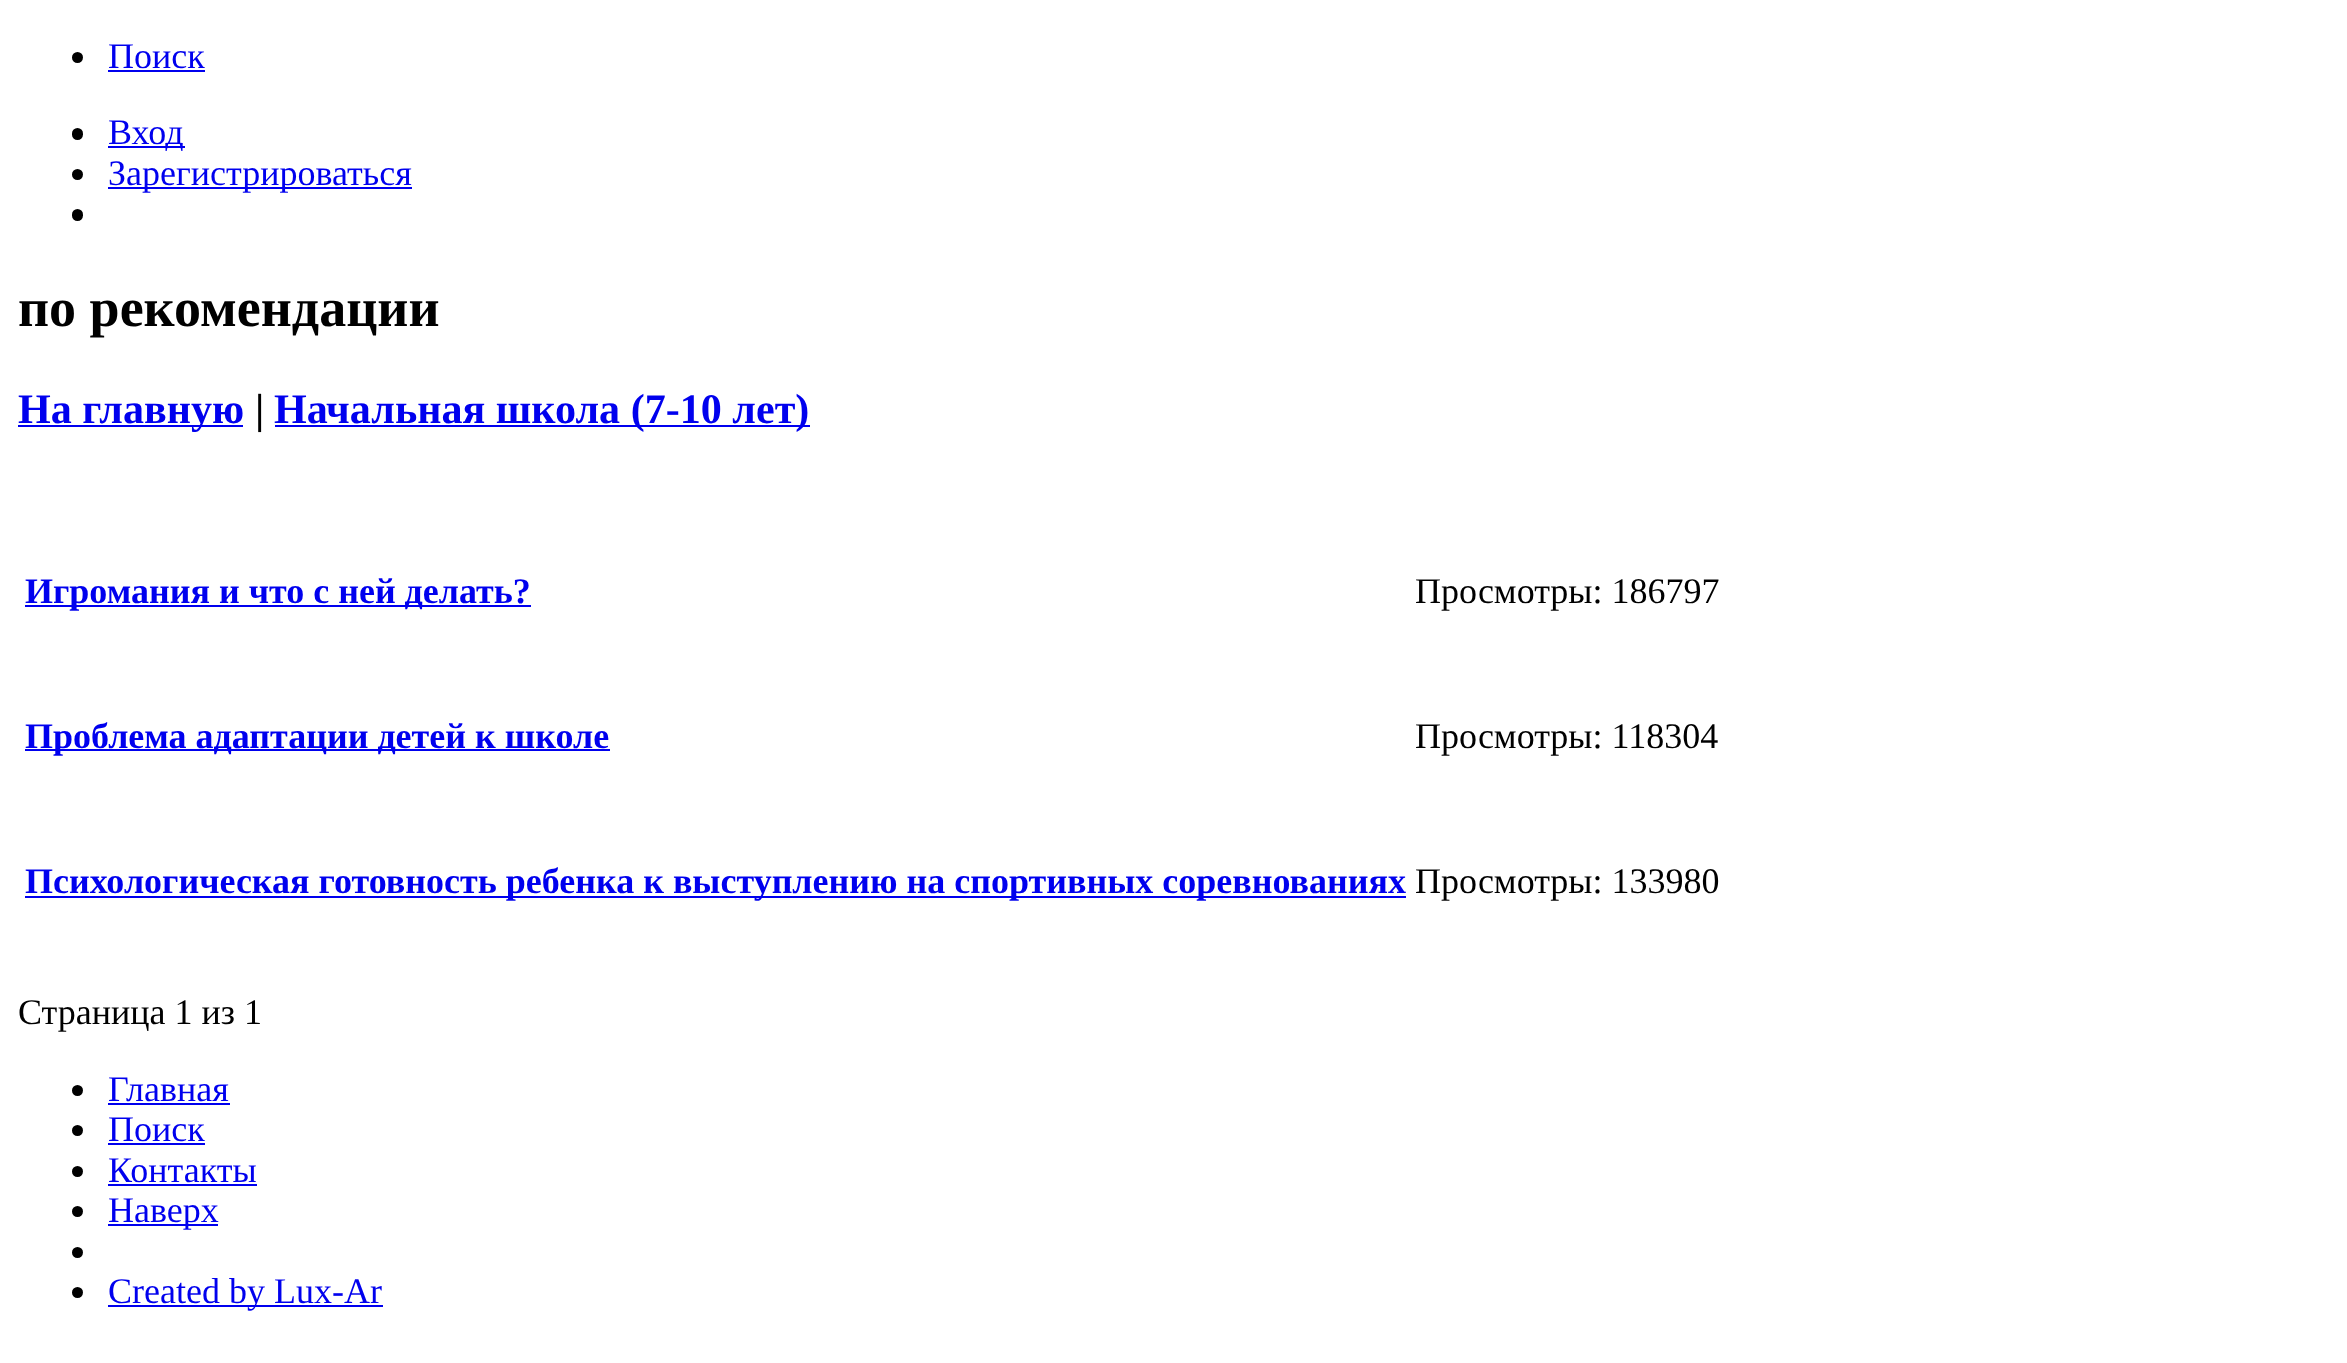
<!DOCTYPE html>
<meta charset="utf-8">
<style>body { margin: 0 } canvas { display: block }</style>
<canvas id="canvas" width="2347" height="1363"></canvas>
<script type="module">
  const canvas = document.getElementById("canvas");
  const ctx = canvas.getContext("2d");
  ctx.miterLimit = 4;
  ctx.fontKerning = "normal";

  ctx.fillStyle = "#ffffff";
  ctx.fillRect(0, 0, 2347, 1363);
  ctx.fillStyle = "#000000";
  ctx.beginPath();
  ctx.arc(77.5, 57.5, 5.5, 0, Math.PI * 2);
  ctx.fill();
  ctx.font = "36px Liberation Serif";
  ctx.fillStyle = "#0000ee";
  ctx.fillText("Поиск", 108, 68);
  ctx.fillRect(108, 70, 97, 2);
  ctx.fillStyle = "#000000";
  ctx.beginPath();
  ctx.roundRect(72, 128, 11, 12, 5.5);
  ctx.fill();
  ctx.fillStyle = "#0000ee";
  ctx.fillRect(108, 146, 77, 2);
  ctx.fillText("Вход", 108, 144);
  ctx.fillStyle = "#000000";
  ctx.beginPath();
  ctx.arc(77.5, 174.5, 5.5, 0, Math.PI * 2);
  ctx.fill();
  ctx.fillStyle = "#0000ee";
  ctx.fillRect(108, 187, 304, 2);
  ctx.fillText("Зарегистрироваться", 108, 185);
  ctx.fillStyle = "#000000";
  ctx.beginPath();
  ctx.roundRect(72, 209, 11, 12, 5.5);
  ctx.fill();
  ctx.font = "bold 54px Liberation Serif";
  ctx.fillText("по рекомендации", 18, 326);
  ctx.fillStyle = "#0000ee";
  ctx.fillRect(18, 425, 225, 2);
  ctx.font = "bold 42.1px Liberation Serif";
  ctx.fillText("На главную", 18, 423);
  ctx.fillStyle = "#000000";
  ctx.fillText("|", 255, 423);
  ctx.fillStyle = "#0000ee";
  ctx.fillRect(275, 425, 535, 2);
  ctx.fillText("Начальная школа (7-10 лет)", 274, 423);
  ctx.fillRect(25, 605, 506, 2);
  ctx.font = "bold 36px Liberation Serif";
  ctx.fillText("Игромания и что с ней делать?", 25, 603);
  ctx.font = "36px Liberation Serif";
  ctx.fillStyle = "#000000";
  ctx.fillText("Просмотры: 186797", 1415, 603);
  ctx.fillStyle = "#0000ee";
  ctx.fillRect(25, 749, 585, 2);
  ctx.font = "bold 36px Liberation Serif";
  ctx.fillText("Проблема адаптации детей к школе", 25, 748);
  ctx.font = "36px Liberation Serif";
  ctx.fillStyle = "#000000";
  ctx.fillText("Просмотры: 118304", 1415, 748);
  ctx.fillStyle = "#0000ee";
  ctx.fillRect(25, 896, 1381, 2);
  ctx.font = "bold 36px Liberation Serif";
  ctx.fillText("Психологическая готовность ребенка к выступлению на спортивных соревнованиях", 25, 893);
  ctx.font = "36px Liberation Serif";
  ctx.fillStyle = "#000000";
  ctx.fillText("Просмотры: 133980", 1415, 893);
  ctx.fillText("Страница 1 из 1", 18, 1024);
  ctx.beginPath();
  ctx.arc(77.5, 1090.5, 5.5, 0, Math.PI * 2);
  ctx.fill();
  ctx.fillStyle = "#0000ee";
  ctx.fillText("Главная", 108, 1101);
  ctx.fillRect(108, 1103, 122, 2);
  ctx.fillStyle = "#000000";
  ctx.beginPath();
  ctx.arc(77.5, 1130.5, 5.5, 0, Math.PI * 2);
  ctx.fill();
  ctx.fillStyle = "#0000ee";
  ctx.fillText("Поиск", 108, 1141);
  ctx.fillRect(108, 1143, 97, 2);
  ctx.fillStyle = "#000000";
  ctx.beginPath();
  ctx.arc(77.5, 1171.5, 5.5, 0, Math.PI * 2);
  ctx.fill();
  ctx.fillStyle = "#0000ee";
  ctx.fillText("Контакты", 108, 1182);
  ctx.fillRect(108, 1184, 149, 2);
  ctx.fillStyle = "#000000";
  ctx.beginPath();
  ctx.arc(77.5, 1211.5, 5.5, 0, Math.PI * 2);
  ctx.fill();
  ctx.fillStyle = "#0000ee";
  ctx.fillRect(108, 1224, 110, 2);
  ctx.fillText("Наверх", 108, 1222);
  ctx.fillStyle = "#000000";
  ctx.beginPath();
  ctx.arc(77.5, 1252.5, 5.5, 0, Math.PI * 2);
  ctx.fill();
  ctx.beginPath();
  ctx.arc(77.5, 1292.5, 5.5, 0, Math.PI * 2);
  ctx.fill();
  ctx.fillStyle = "#0000ee";
  ctx.fillRect(108, 1305, 275, 2);
  ctx.fillText("Created by Lux-Ar", 108, 1303);
</script>
